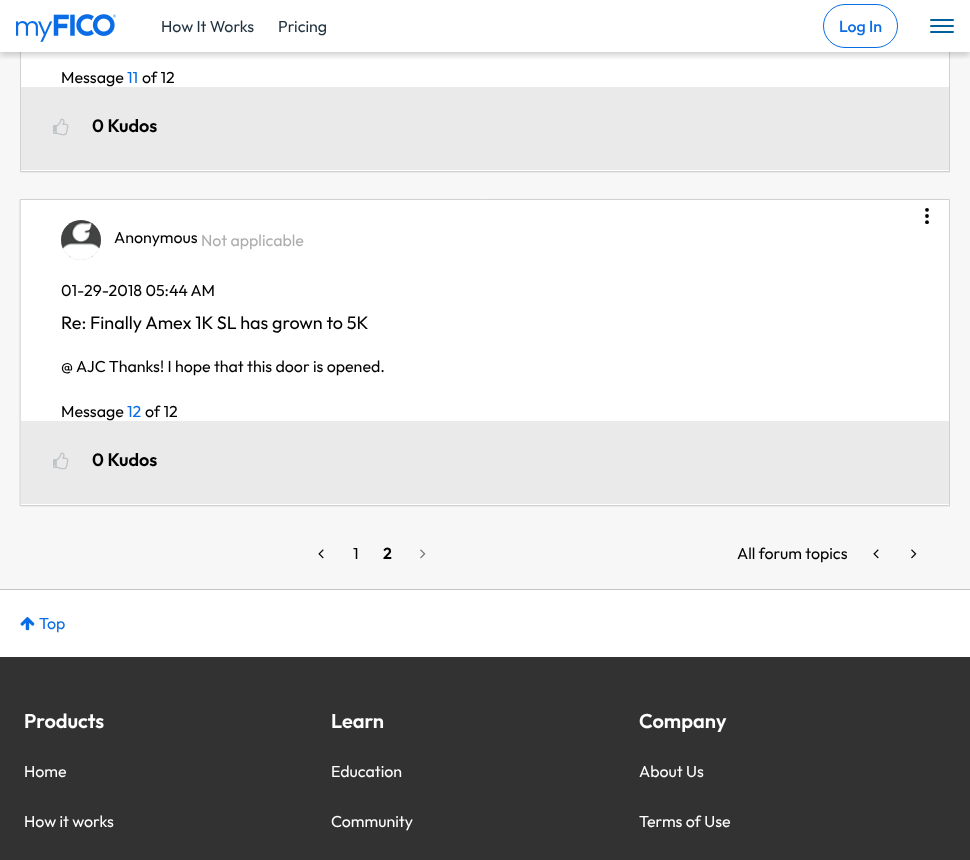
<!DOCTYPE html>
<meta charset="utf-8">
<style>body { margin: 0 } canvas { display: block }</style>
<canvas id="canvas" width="970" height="860"></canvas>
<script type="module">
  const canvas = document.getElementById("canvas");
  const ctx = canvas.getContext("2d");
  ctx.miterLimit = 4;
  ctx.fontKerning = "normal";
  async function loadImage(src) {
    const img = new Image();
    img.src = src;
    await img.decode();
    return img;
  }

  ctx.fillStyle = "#f7f7f8";
  ctx.fillRect(0, 0, 970, 860);
  ctx.fillStyle = "rgba(0, 0, 0, 0.05)";
  ctx.filter = "blur(0.5px)";
  ctx.beginPath();
  ctx.rect(20, -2, 930, 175);
  ctx.fill();
  ctx.filter = "none";
  ctx.fillStyle = "#ffffff";
  ctx.fillRect(21, 52, 928, 119);
  ctx.strokeStyle = "#d1d1d1";
  ctx.strokeRect(20.5, -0.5, 929, 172);
  ctx.fillRect(0, 0, 970, 52);
  ctx.save();
  ctx.beginPath();
  ctx.rect(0, 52, 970, 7);
  ctx.clip();
  ctx.fillStyle = "rgba(0, 0, 0, 0.2)";
  ctx.filter = "blur(3.5px)";
  ctx.beginPath();
  ctx.rect(0, 3, 970, 52);
  ctx.fill();
  ctx.filter = "none";
  ctx.restore();
  ctx.drawImage(await loadImage("img1.png"), 16, 14, 100, 28);
  ctx.font = "16px Outfit";
  ctx.fillStyle = "#1f323f";
  ctx.fillText("How It Works", 161, 32);
  ctx.fillText("Pricing", 278, 32);
  ctx.beginPath();
  ctx.roundRect(823.5, 4.5, 74, 43, 21.5);
  ctx.strokeStyle = "#0a6de6";
  ctx.stroke();
  ctx.font = "500 16px Outfit";
  ctx.fillStyle = "#0a6de6";
  ctx.fillText("Log In", 839, 32);
  ctx.beginPath();
  ctx.moveTo(931, 26);
  ctx.lineTo(953, 26);
  ctx.moveTo(931, 32);
  ctx.lineTo(953, 32);
  ctx.moveTo(931, 20);
  ctx.lineTo(953, 20);
  ctx.strokeStyle = "#00609c";
  ctx.lineWidth = 2;
  ctx.lineCap = "round";
  ctx.stroke();
  ctx.font = "16px Outfit";
  ctx.fillStyle = "#000000";
  ctx.fillText("Message", 61, 83);
  ctx.fillStyle = "#0a6de6";
  ctx.fillText("11", 127, 83);
  ctx.fillStyle = "#000000";
  ctx.fillText("of 12", 142, 83);
  ctx.fillStyle = "#eaeaea";
  ctx.fillRect(21, 87, 928, 83);
  ctx.drawImage(await loadImage("img2.png"), 53, 118, 16, 18);
  ctx.font = "600 18px Outfit";
  ctx.fillStyle = "#000000";
  ctx.fillText("0 Kudos", 92, 132);
  ctx.fillStyle = "rgba(0, 0, 0, 0.05)";
  ctx.filter = "blur(0.5px)";
  ctx.beginPath();
  ctx.rect(20, 200, 930, 307);
  ctx.fill();
  ctx.filter = "none";
  ctx.fillStyle = "#ffffff";
  ctx.beginPath();
  ctx.rect(20.5, 199.5, 929, 306);
  ctx.fill();
  ctx.strokeStyle = "#d1d1d1";
  ctx.lineWidth = 1;
  ctx.stroke();
  ctx.fillStyle = "#000000";
  ctx.beginPath();
  ctx.arc(927, 209.8, 1.9, 0, Math.PI * 2);
  ctx.fill();
  ctx.beginPath();
  ctx.arc(927, 216, 1.9, 0, Math.PI * 2);
  ctx.fill();
  ctx.beginPath();
  ctx.arc(927, 222.2, 1.9, 0, Math.PI * 2);
  ctx.fill();
  ctx.fillStyle = "#c4c4c4";
  ctx.filter = "blur(0.5px)";
  ctx.beginPath();
  ctx.roundRect(61, 220, 40, 40, 20);
  ctx.fill();
  ctx.filter = "none";
  ctx.drawImage(await loadImage("img3.png"), 61, 220, 40, 40);
  ctx.font = "16px Outfit";
  ctx.fillStyle = "#000000";
  ctx.fillText("Anonymous", 114, 243);
  ctx.fillStyle = "#adadae";
  ctx.fillText("Not applicable", 201, 246);
  ctx.fillStyle = "#000000";
  ctx.fillText("01-29-2018 05:44 AM", 61, 296);
  ctx.font = "18px Outfit";
  ctx.fillText("Re: Finally Amex 1K SL has grown to 5K", 61, 329);
  ctx.font = "16px Outfit";
  ctx.fillText("@ AJC Thanks! I hope that this door is opened.", 61, 372);
  ctx.fillText("Message", 61, 417);
  ctx.fillStyle = "#0a6de6";
  ctx.fillText("12", 127, 417);
  ctx.fillStyle = "#000000";
  ctx.fillText("of 12", 145, 417);
  ctx.fillStyle = "#eaeaea";
  ctx.fillRect(21, 421, 928, 83);
  ctx.drawImage(await loadImage("img2.png"), 53, 452, 16, 18);
  ctx.font = "600 18px Outfit";
  ctx.fillStyle = "#000000";
  ctx.fillText("0 Kudos", 92, 466);
  ctx.drawImage(await loadImage("img4.png"), 318, 549, 6, 10);
  ctx.font = "16px Outfit";
  ctx.fillText("1", 353, 559);
  ctx.font = "600 16px Outfit";
  ctx.fillText("2", 383, 559);
  ctx.drawImage(await loadImage("img5.png"), 420, 549, 6, 10);
  ctx.font = "16px Outfit";
  ctx.fillText("All forum topics", 737, 559);
  ctx.drawImage(await loadImage("img4.png"), 873, 549, 6, 10);
  ctx.drawImage(await loadImage("img6.png"), 911, 549, 6, 10);
  ctx.fillStyle = "#ffffff";
  ctx.fillRect(0, 590, 970, 67);
  ctx.fillStyle = "#c4c4c4";
  ctx.fillRect(0, 589, 970, 1);
  ctx.drawImage(await loadImage("img7.png"), 20, 617, 15, 14);
  ctx.fillStyle = "#0a6de6";
  ctx.fillText("Top", 39, 629);
  ctx.fillStyle = "#323232";
  ctx.fillRect(0, 657, 970, 203);
  ctx.font = "600 20px Outfit";
  ctx.fillStyle = "#ffffff";
  ctx.fillText("Products", 24, 728);
  ctx.font = "16px Outfit";
  ctx.fillText("Home", 24, 777);
  ctx.fillText("How it works", 24, 827);
  ctx.font = "600 20px Outfit";
  ctx.fillText("Learn", 331, 728);
  ctx.font = "16px Outfit";
  ctx.fillText("Education", 331, 777);
  ctx.fillText("Community", 331, 827);
  ctx.font = "600 20px Outfit";
  ctx.fillText("Company", 639, 728);
  ctx.font = "16px Outfit";
  ctx.fillText("About Us", 639, 777);
  ctx.fillText("Terms of Use", 639, 827);
</script>
